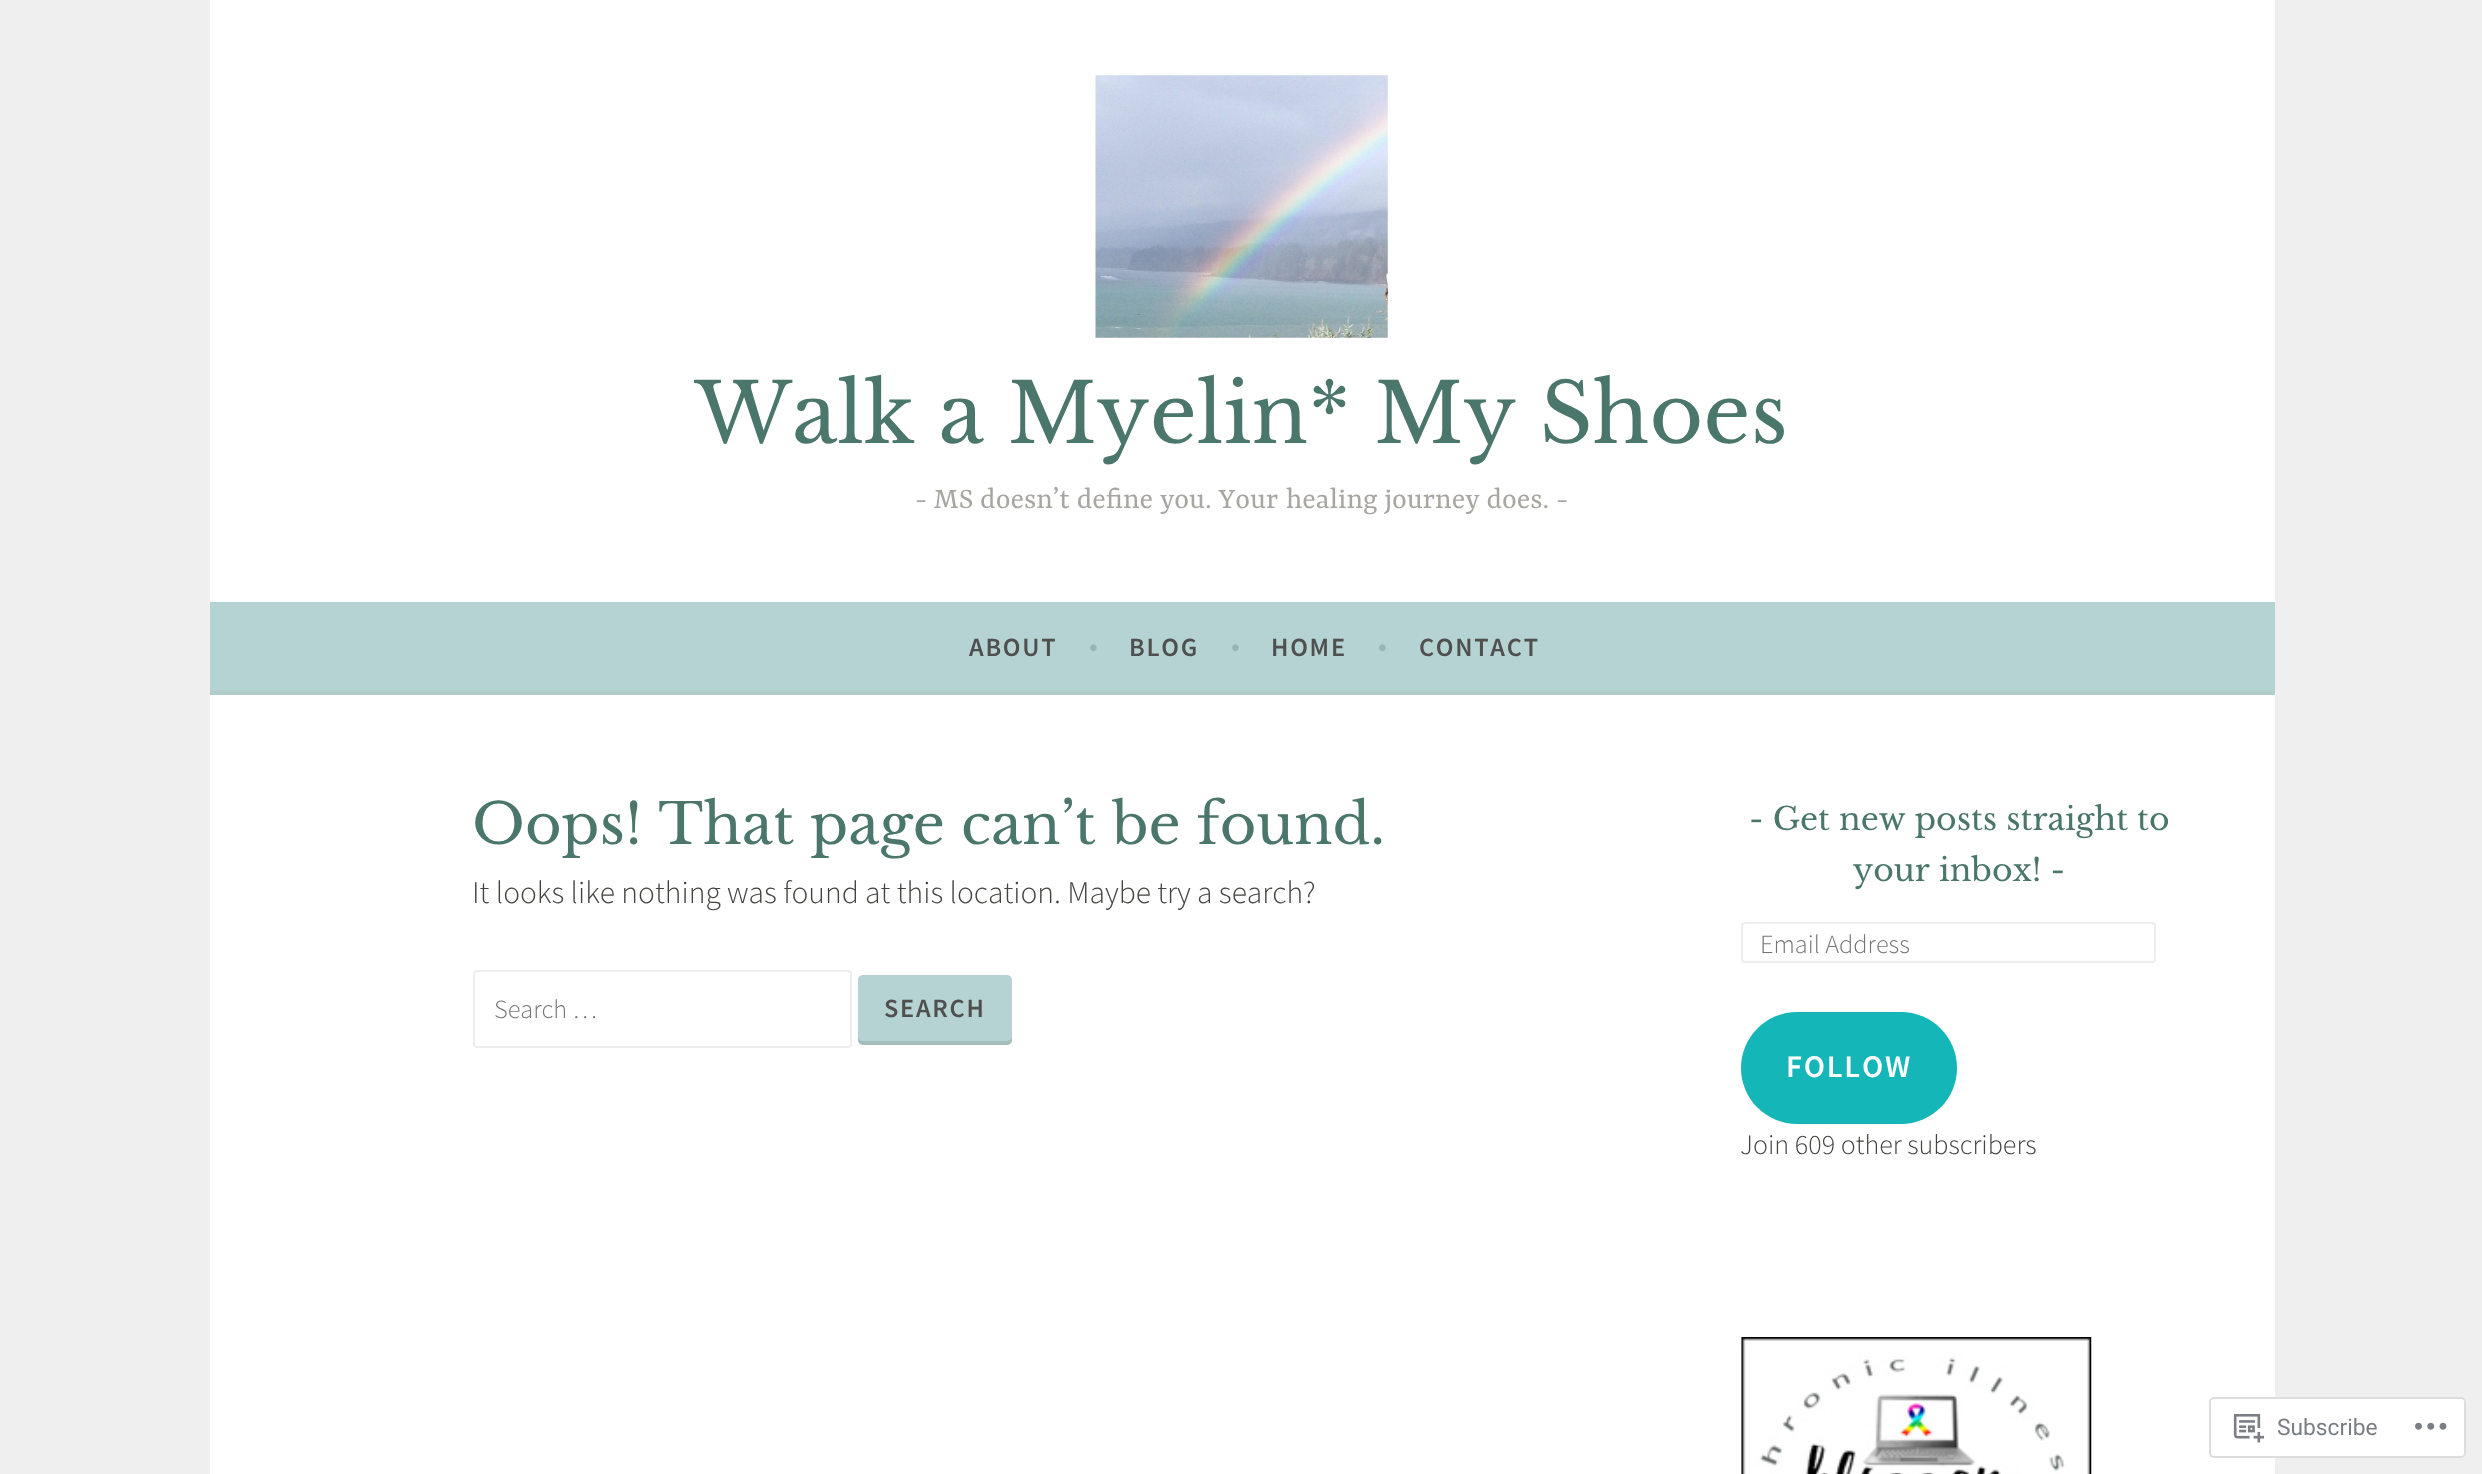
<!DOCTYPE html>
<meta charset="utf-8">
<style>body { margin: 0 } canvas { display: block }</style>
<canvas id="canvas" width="2482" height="1474"></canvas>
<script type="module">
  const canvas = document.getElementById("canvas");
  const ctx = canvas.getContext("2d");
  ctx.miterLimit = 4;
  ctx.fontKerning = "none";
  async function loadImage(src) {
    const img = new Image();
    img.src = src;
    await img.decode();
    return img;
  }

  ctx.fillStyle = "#efefef";
  ctx.fillRect(0, 0, 2482, 1474);
  ctx.fillStyle = "#ffffff";
  ctx.fillRect(210, 0, 2065, 602);
  ctx.drawImage(await loadImage("img1.png"), 1095, 75, 293, 263);
  ctx.font = "82.25px Libre Baskerville";
  ctx.fillStyle = "#4b766b";
  ctx.fillText("Walk a Myelin*", 695, 443);
  ctx.fillText("My Shoes", 1374, 443);
  ctx.font = "31.5px Yrsa";
  ctx.fillStyle = "#a8a6a1";
  ctx.fillText("- MS doesn’t define you. Your", 915, 508);
  ctx.fillText("healing journey does. -", 1286, 508);
  ctx.fillStyle = "#b5d3d2";
  ctx.fillRect(210, 602, 2065, 89);
  ctx.fillStyle = "#b0cdcc";
  ctx.fillRect(210, 691, 2065, 4);
  ctx.letterSpacing = "1.75px";
  ctx.font = "600 26.25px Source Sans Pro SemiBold";
  ctx.fillStyle = "#4f4f4f";
  ctx.fillText("ABOUT", 969, 656);
  ctx.letterSpacing = "0px";
  ctx.font = "300 31.5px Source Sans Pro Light";
  ctx.fillStyle = "#9ab3b3";
  ctx.fillText("•", 1089, 656);
  ctx.letterSpacing = "1.75px";
  ctx.font = "600 26.25px Source Sans Pro SemiBold";
  ctx.fillStyle = "#4f4f4f";
  ctx.fillText("BLOG", 1129, 656);
  ctx.letterSpacing = "0px";
  ctx.font = "300 31.5px Source Sans Pro Light";
  ctx.fillStyle = "#9ab3b3";
  ctx.fillText("•", 1231, 656);
  ctx.letterSpacing = "1.75px";
  ctx.font = "600 26.25px Source Sans Pro SemiBold";
  ctx.fillStyle = "#4f4f4f";
  ctx.fillText("HOME", 1271, 656);
  ctx.letterSpacing = "0px";
  ctx.font = "300 31.5px Source Sans Pro Light";
  ctx.fillStyle = "#9ab3b3";
  ctx.fillText("•", 1378, 656);
  ctx.letterSpacing = "1.75px";
  ctx.font = "600 26.25px Source Sans Pro SemiBold";
  ctx.fillStyle = "#4f4f4f";
  ctx.fillText("CONTACT", 1419, 656);
  ctx.fillStyle = "#ffffff";
  ctx.fillRect(210, 695, 2065, 779);
  ctx.letterSpacing = "0px";
  ctx.font = "56px Libre Baskerville";
  ctx.fillStyle = "#4b766b";
  ctx.fillText("Oops! That page can’t be found.", 472, 844);
  ctx.font = "300 31.5px Source Sans Pro Light";
  ctx.fillStyle = "#444340";
  ctx.fillText("It looks like nothing was found at this location. Maybe try a search?", 472, 903);
  ctx.beginPath();
  ctx.roundRect(474, 971, 377, 76, 3);
  ctx.strokeStyle = "#eeeeee";
  ctx.lineWidth = 2;
  ctx.stroke();
  ctx.font = "300 26.25px Source Sans Pro Light";
  ctx.fillStyle = "#757575";
  ctx.fillText("Search …", 494, 1018);
  ctx.fillStyle = "#b5d3d2";
  ctx.beginPath();
  ctx.roundRect(858, 975, 154, 70, 5);
  ctx.fill();
  ctx.fillStyle = "rgba(0, 0, 0, 0.1)";
  ctx.beginPath();
  ctx.moveTo(858, 1036);
  ctx.lineTo(858, 1040);
  ctx.bezierCurveTo(858, 1043, 860, 1045, 863, 1045);
  ctx.lineTo(1007, 1045);
  ctx.bezierCurveTo(1010, 1045, 1012, 1043, 1012, 1040);
  ctx.lineTo(1012, 1036);
  ctx.bezierCurveTo(1012, 1039, 1009, 1041, 1006, 1041);
  ctx.lineTo(863, 1041);
  ctx.bezierCurveTo(860, 1041, 858, 1039, 858, 1036);
  ctx.closePath();
  ctx.fill();
  ctx.letterSpacing = "1.75px";
  ctx.font = "600 26.25px Source Sans Pro SemiBold";
  ctx.fillStyle = "#4f4f4f";
  ctx.fillText("SEARCH", 884, 1017);
  ctx.letterSpacing = "0px";
  ctx.font = "31.5px Libre Baskerville";
  ctx.fillStyle = "#4b766b";
  ctx.fillText("- Get new posts straight to", 1749, 830);
  ctx.fillText("your inbox! -", 1853, 881);
  ctx.beginPath();
  ctx.roundRect(1742, 923, 413, 39, 3);
  ctx.stroke();
  ctx.font = "300 26.25px Source Sans Pro Light";
  ctx.fillStyle = "#757575";
  ctx.fillText("Email Address", 1760, 953);
  ctx.fillStyle = "#15b6b8";
  ctx.beginPath();
  ctx.roundRect(1741, 1012, 216, 112, 56);
  ctx.fill();
  ctx.letterSpacing = "1.75px";
  ctx.font = "600 31.5px Source Sans Pro SemiBold";
  ctx.fillStyle = "#ffffff";
  ctx.fillText("FOLLOW", 1786, 1077);
  ctx.letterSpacing = "0px";
  ctx.font = "300 28px Source Sans Pro Light";
  ctx.fillStyle = "#444340";
  ctx.fillText("Join 609 other subscribers", 1740, 1154);
  ctx.drawImage(await loadImage("img2.png"), 1741, 1337, 351, 137);
  ctx.fillStyle = "rgba(255, 255, 255, 0.98)";
  ctx.beginPath();
  ctx.roundRect(2209, 1397, 257, 61, 5);
  ctx.fill();
  ctx.beginPath();
  ctx.roundRect(2210, 1398, 255, 59, 4);
  ctx.strokeStyle = "rgba(220, 220, 222, 0.98)";
  ctx.stroke();
  ctx.drawImage(await loadImage("img3.png"), 2233, 1414, 32, 29);
  ctx.font = "22.75px Roboto";
  ctx.fillStyle = "#7a7e84";
  ctx.fillText("Subscribe", 2277, 1435);
  ctx.drawImage(await loadImage("img4.png"), 2415, 1422, 32, 8);
</script>
